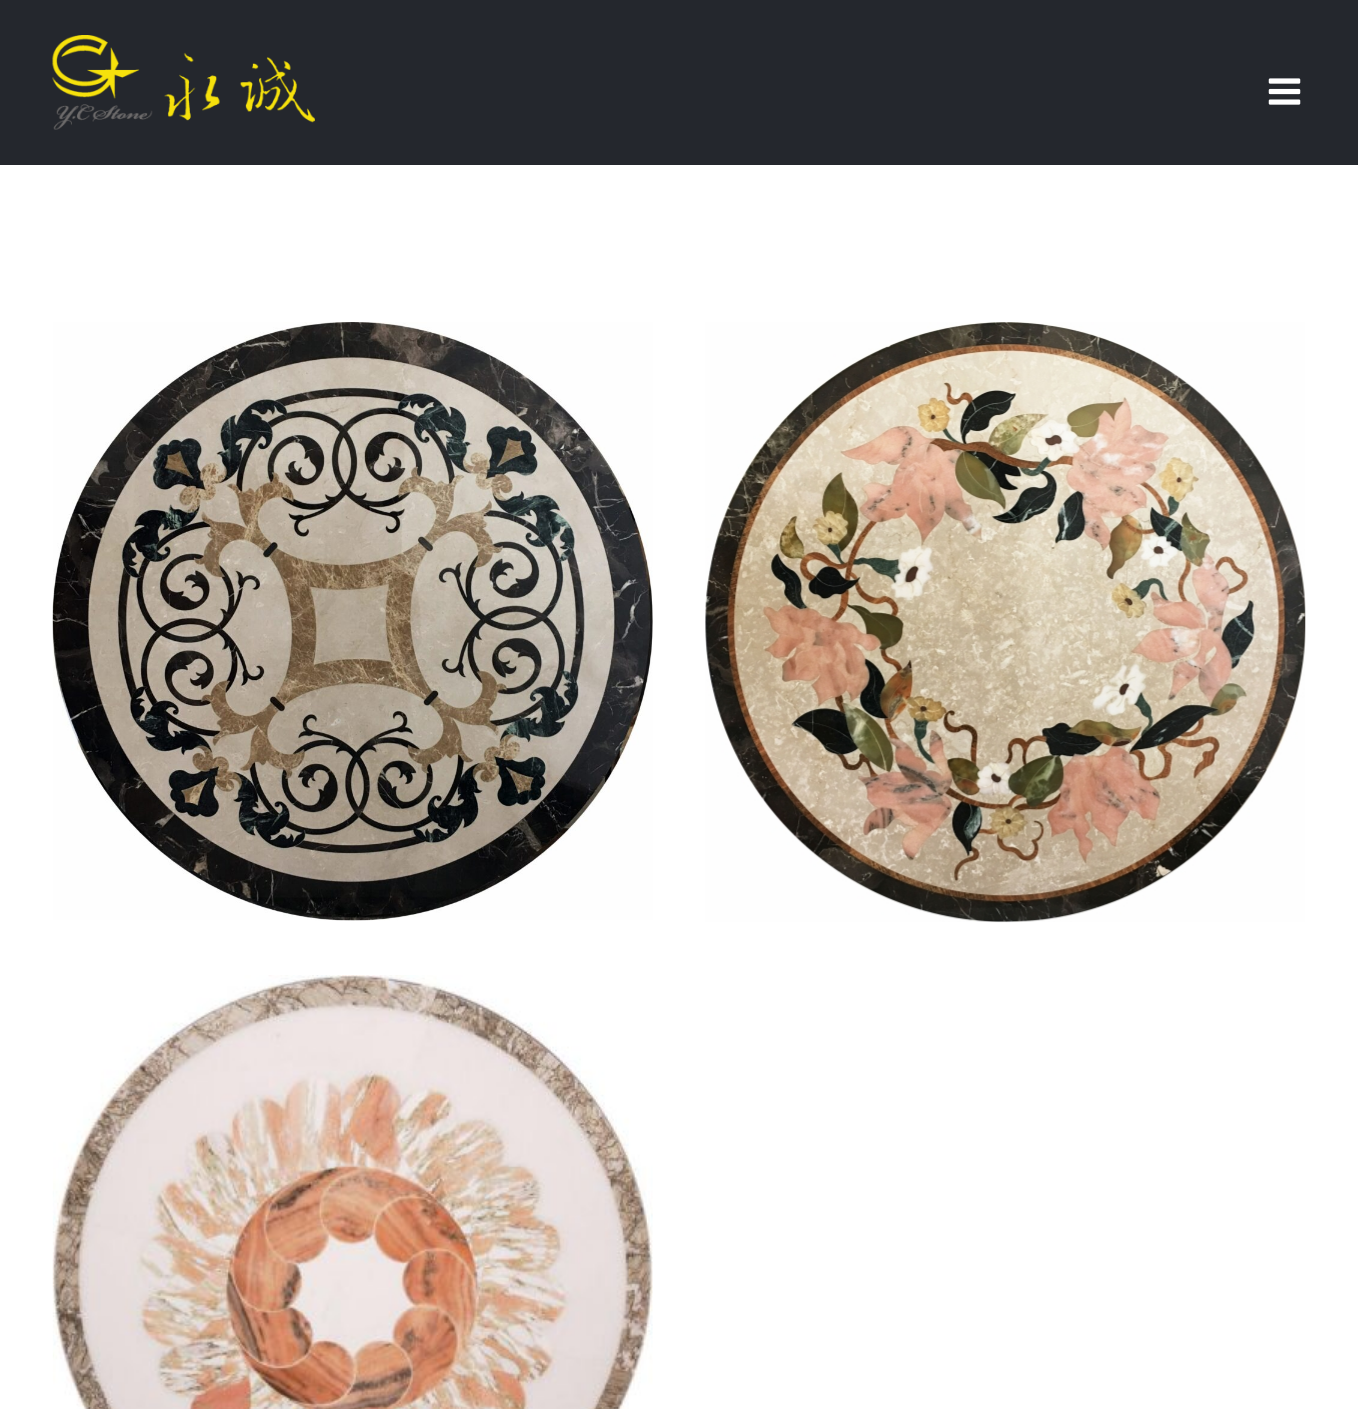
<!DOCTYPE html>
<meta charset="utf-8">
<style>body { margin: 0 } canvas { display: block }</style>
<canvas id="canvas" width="1358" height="1409"></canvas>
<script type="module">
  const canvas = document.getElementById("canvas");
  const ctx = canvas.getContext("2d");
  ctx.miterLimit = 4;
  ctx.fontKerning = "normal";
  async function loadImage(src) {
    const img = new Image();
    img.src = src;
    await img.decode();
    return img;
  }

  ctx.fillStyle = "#ffffff";
  ctx.fillRect(0, 0, 1358, 1409);
  ctx.fillStyle = "#24272d";
  ctx.fillRect(0, 0, 1358, 165);
  ctx.drawImage(await loadImage("img1.png"), 52, 35, 263, 95);
  ctx.drawImage(await loadImage("img2.png"), 1268, 78, 33, 27);
  ctx.drawImage(await loadImage("img3.png"), 52, 322, 601, 599);
  ctx.drawImage(await loadImage("img4.png"), 705, 322, 601, 601);
  ctx.drawImage(await loadImage("img5.png"), 52, 975, 601, 434);
</script>
